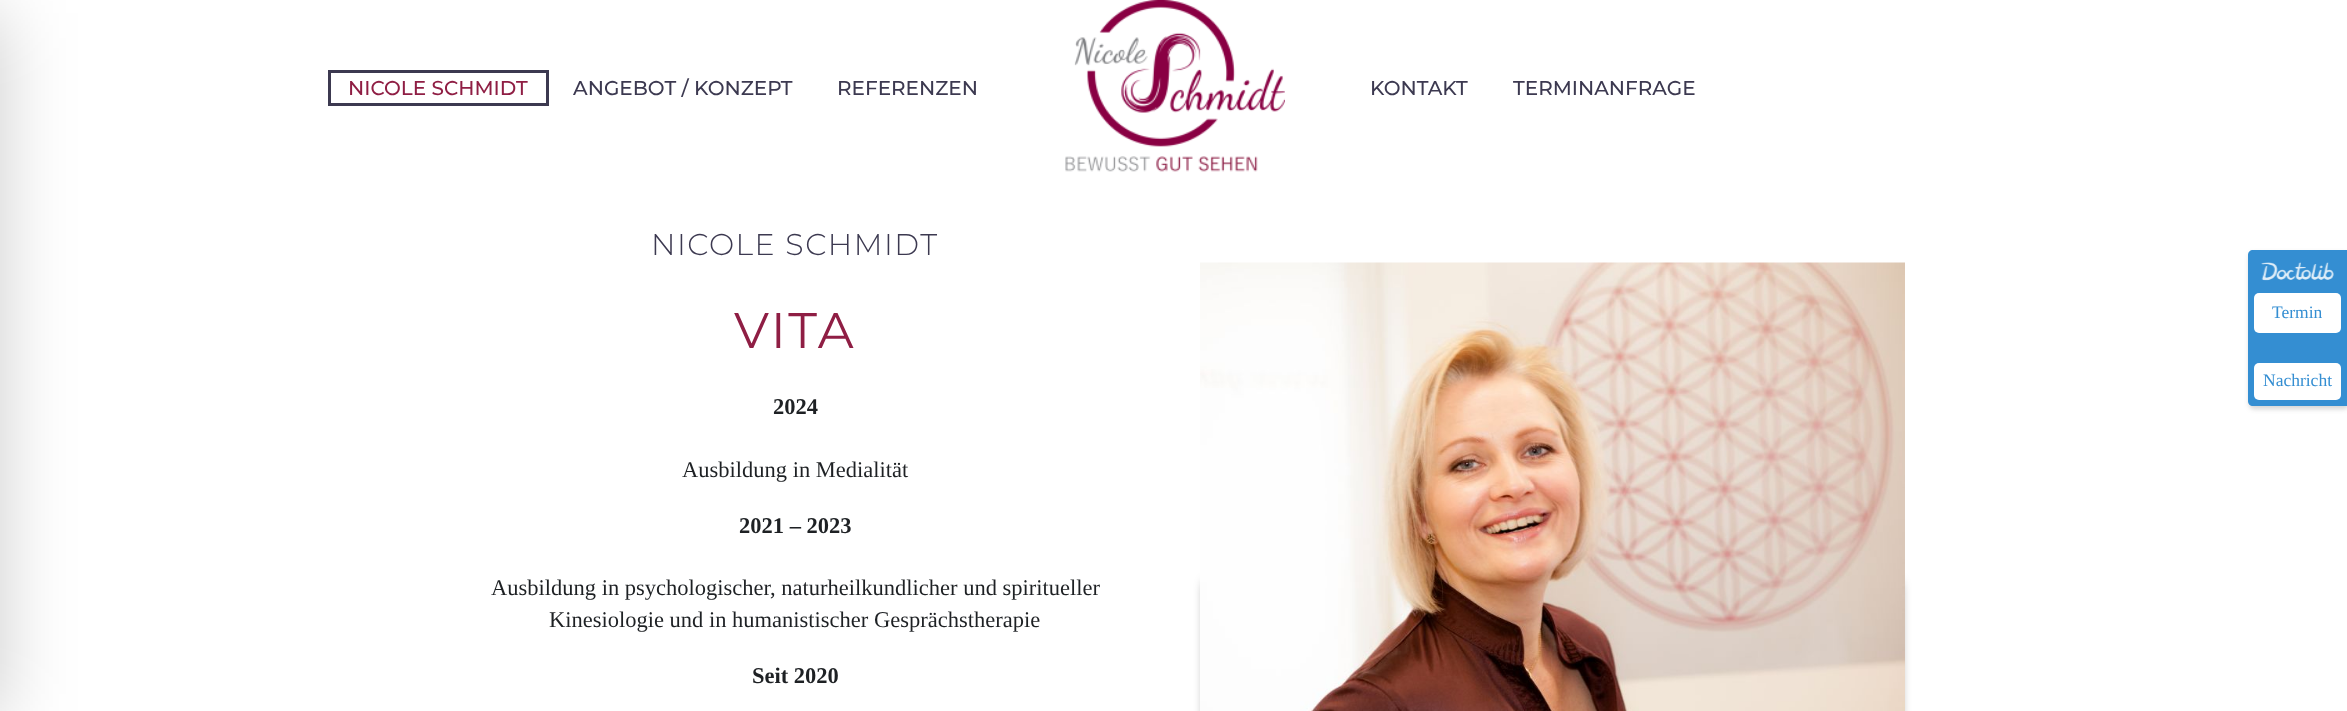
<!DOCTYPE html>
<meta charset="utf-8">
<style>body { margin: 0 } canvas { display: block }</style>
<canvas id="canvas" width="2347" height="711"></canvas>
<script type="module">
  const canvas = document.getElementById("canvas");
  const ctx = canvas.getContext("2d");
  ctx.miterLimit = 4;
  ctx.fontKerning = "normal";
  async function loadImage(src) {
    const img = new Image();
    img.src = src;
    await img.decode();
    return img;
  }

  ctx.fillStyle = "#ffffff";
  ctx.fillRect(0, 0, 2347, 711);
  ctx.fillStyle = "rgba(0, 0, 0, 0.2)";
  ctx.filter = "blur(37.5px)";
  ctx.beginPath();
  ctx.rect(-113, 13, 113, 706);
  ctx.fill();
  ctx.filter = "none";
  ctx.strokeStyle = "#3c3950";
  ctx.lineWidth = 3;
  ctx.strokeRect(329.5, 71.5, 218, 33);
  ctx.font = "500 20px Montserrat";
  ctx.fillStyle = "#8f1e44";
  ctx.fillText("NICOLE SCHMIDT", 348, 95);
  ctx.fillStyle = "#3c3950";
  ctx.fillText("ANGEBOT / KONZEPT", 573, 95);
  ctx.fillText("REFERENZEN", 837, 95);
  ctx.drawImage(await loadImage("img1.png"), 1065, 0, 220, 172);
  ctx.fillText("KONTAKT", 1370, 95);
  ctx.fillText("TERMINANFRAGE", 1513, 95);
  ctx.letterSpacing = "1.5px";
  ctx.font = "300 30px Montserrat";
  ctx.fillText("NICOLE SCHMIDT", 651, 255);
  ctx.letterSpacing = "2.5px";
  ctx.font = "50px Montserrat";
  ctx.fillStyle = "#8f1e44";
  ctx.fillText("VITA", 734, 348);
  ctx.letterSpacing = "0px";
  ctx.font = "bold 22.5px Liberation Serif";
  ctx.fillStyle = "#1e2124";
  ctx.fillText("2024", 773, 414);
  ctx.font = "22.5px Liberation Serif";
  ctx.fillText("Ausbildung in Medialität", 682, 477);
  ctx.font = "bold 22.5px Liberation Serif";
  ctx.fillText("2021 – 2023", 739, 533);
  ctx.font = "22.5px Liberation Serif";
  ctx.fillText("Ausbildung in psychologischer, naturheilkundlicher und spiritueller", 491, 595);
  ctx.fillText("Kinesiologie und in humanistischer Gesprächstherapie", 549, 627);
  ctx.font = "bold 22.5px Liberation Serif";
  ctx.fillText("Seit 2020", 752, 683);
  ctx.fillStyle = "rgba(0, 0, 0, 0.6)";
  ctx.filter = "blur(6px)";
  ctx.beginPath();
  ctx.rect(1206, 583, 347, 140);
  ctx.fill();
  ctx.filter = "none";
  ctx.filter = "blur(6px)";
  ctx.beginPath();
  ctx.rect(1553, 583, 346, 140);
  ctx.fill();
  ctx.filter = "none";
  ctx.drawImage(await loadImage("img2.png"), 1200, 262, 705, 449);
  ctx.fillStyle = "rgba(38, 38, 38, 0.2)";
  ctx.filter = "blur(2.5px)";
  ctx.beginPath();
  ctx.roundRect(2249, 253, 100, 156, 5);
  ctx.fill();
  ctx.filter = "none";
  ctx.fillStyle = "#348ed2";
  ctx.beginPath();
  ctx.moveTo(2253, 250);
  ctx.lineTo(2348, 250);
  ctx.lineTo(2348, 406);
  ctx.lineTo(2253, 406);
  ctx.bezierCurveTo(2250, 406, 2248, 404, 2248, 401);
  ctx.lineTo(2248, 255);
  ctx.bezierCurveTo(2248, 252, 2250, 250, 2253, 250);
  ctx.closePath();
  ctx.fill();
  ctx.drawImage(await loadImage("img3.png"), 2261, 262, 73, 19);
  ctx.fillStyle = "#ffffff";
  ctx.beginPath();
  ctx.roundRect(2254, 293, 87, 40, 5);
  ctx.fill();
  ctx.font = "17.5px Liberation Serif";
  ctx.fillStyle = "#348ed2";
  ctx.fillText("Termin", 2272, 318);
  ctx.fillStyle = "#ffffff";
  ctx.beginPath();
  ctx.roundRect(2254, 363, 87, 37, 5);
  ctx.fill();
  ctx.fillStyle = "#348ed2";
  ctx.fillText("Nachricht", 2263, 386);
</script>
